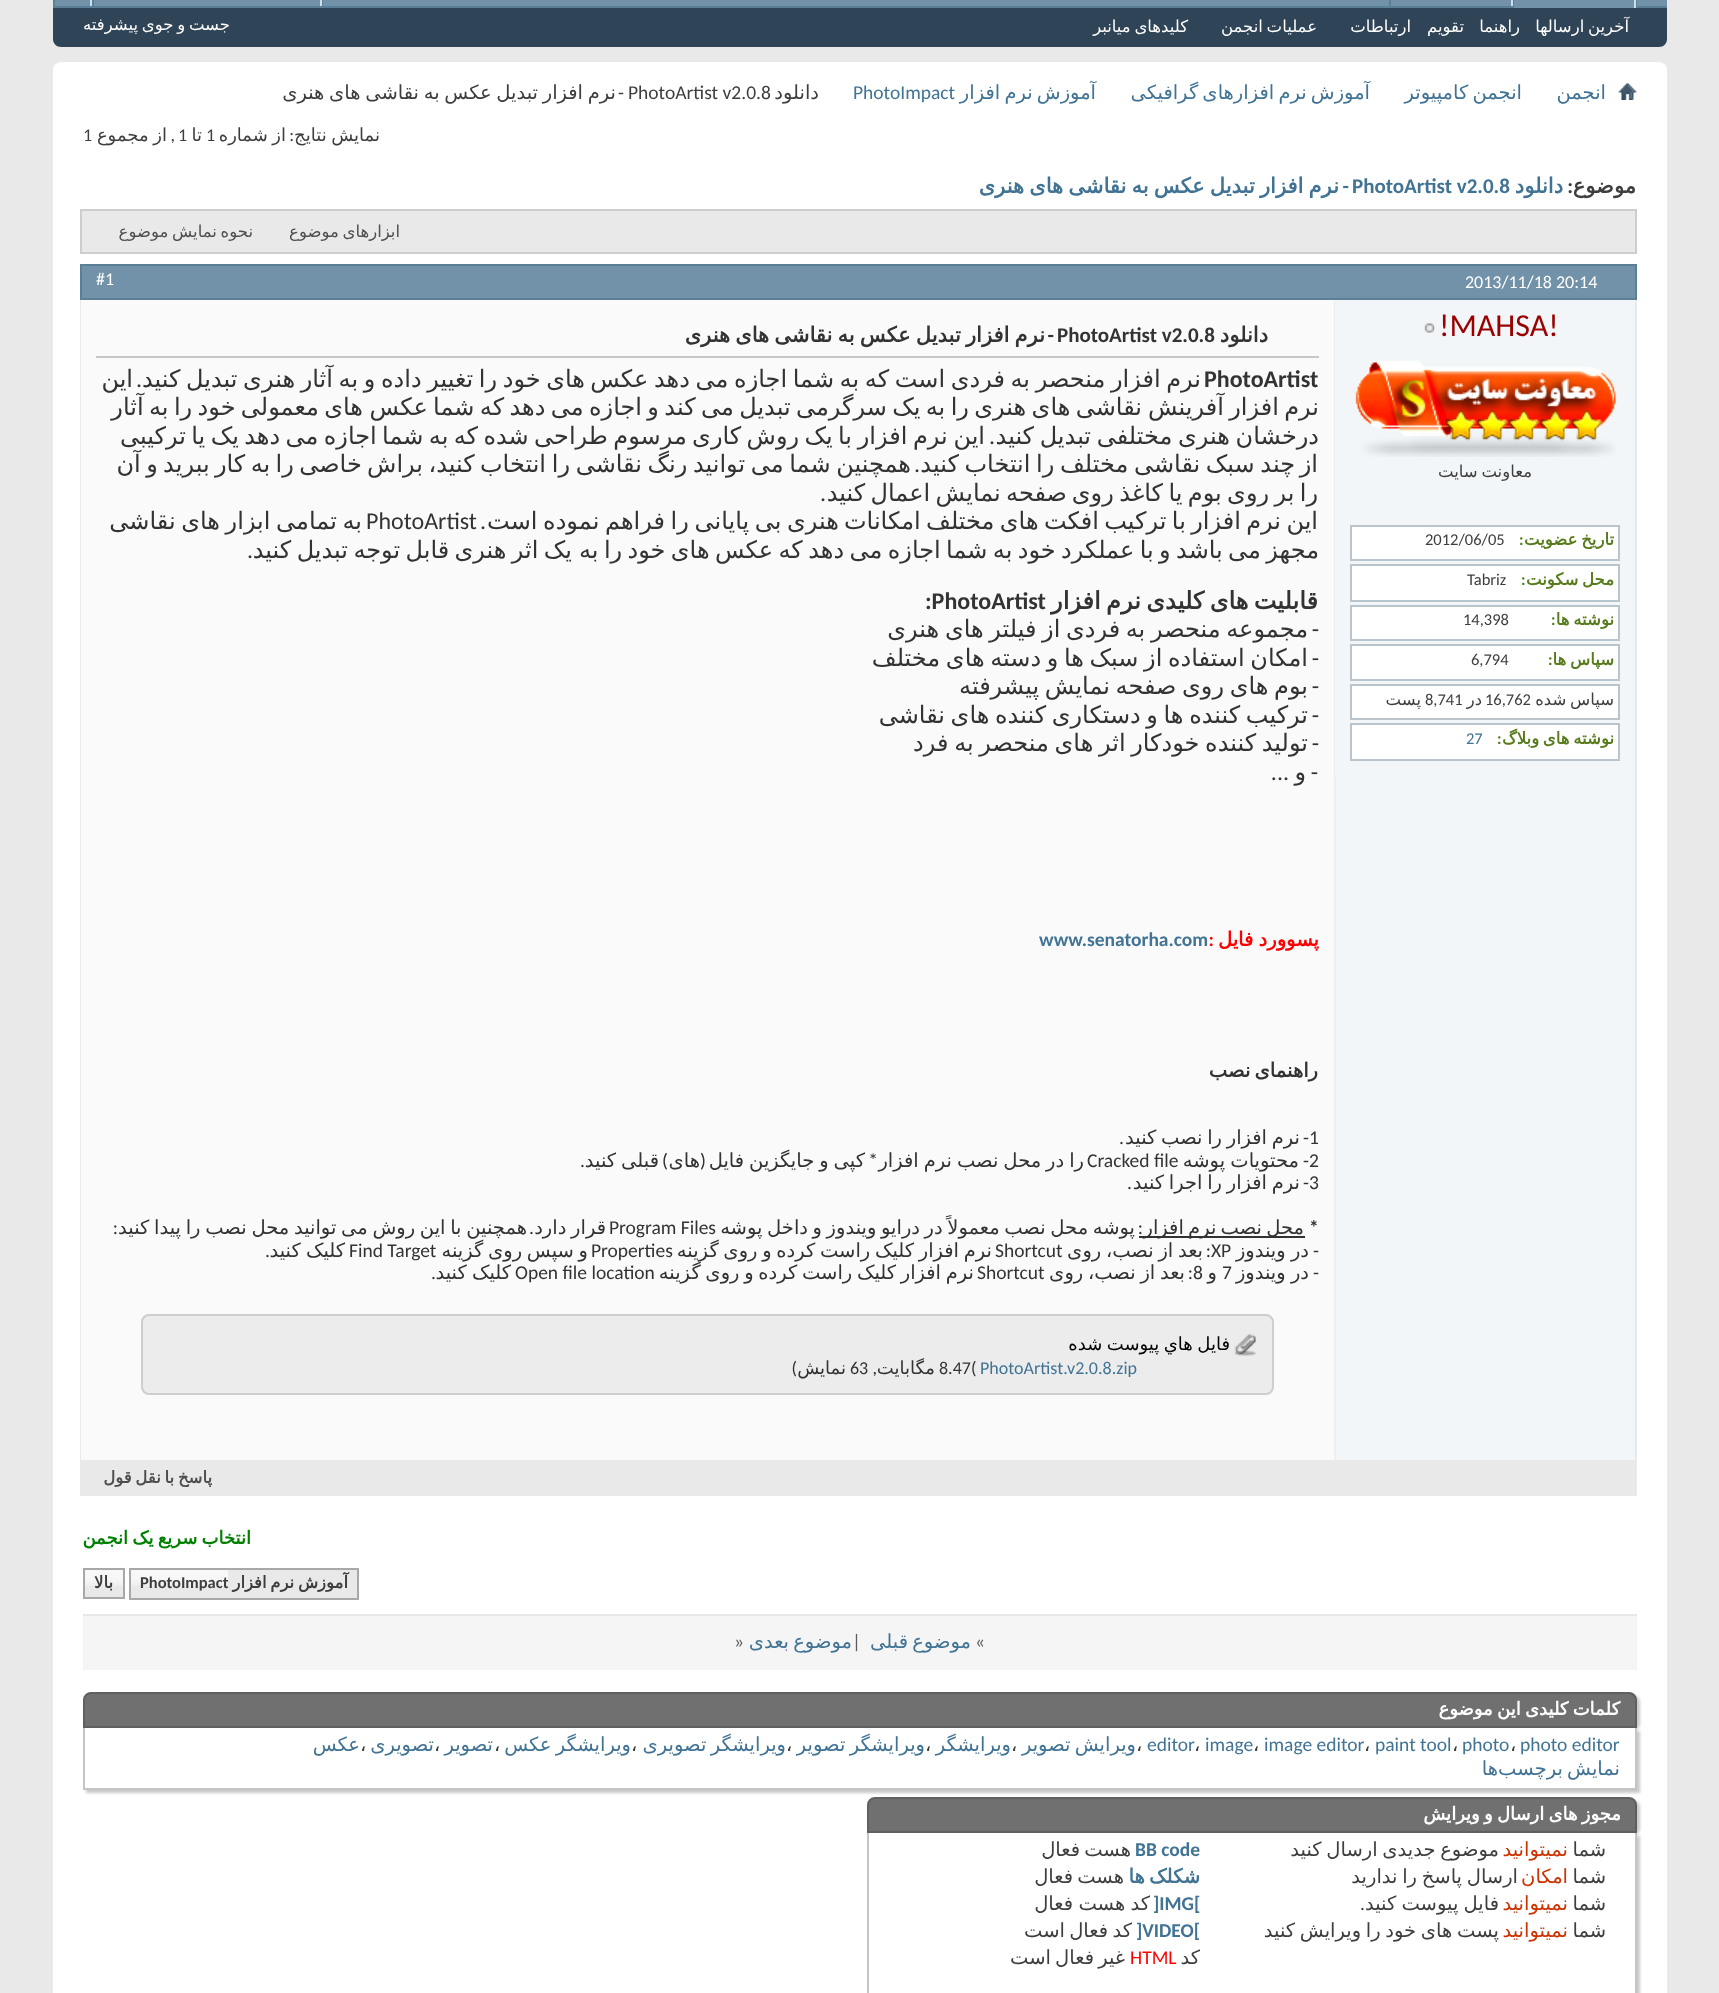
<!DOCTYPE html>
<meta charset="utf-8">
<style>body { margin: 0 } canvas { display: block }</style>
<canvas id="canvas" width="1719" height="1993"></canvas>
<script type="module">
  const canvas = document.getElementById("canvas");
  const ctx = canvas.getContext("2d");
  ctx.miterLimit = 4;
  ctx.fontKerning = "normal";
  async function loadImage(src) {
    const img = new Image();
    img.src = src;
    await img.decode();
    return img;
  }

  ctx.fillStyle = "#e9e9e9";
  ctx.fillRect(0, 0, 1719, 1993);
  ctx.fillStyle = "#2f4456";
  ctx.beginPath();
  ctx.moveTo(53, -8);
  ctx.lineTo(1667, -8);
  ctx.lineTo(1667, 39);
  ctx.bezierCurveTo(1667, 43.5, 1663.5, 47, 1659, 47);
  ctx.lineTo(61, 47);
  ctx.bezierCurveTo(56.5, 47, 53, 43.5, 53, 39);
  ctx.closePath();
  ctx.fill();
  ctx.fillStyle = "#7192a8";
  ctx.fillRect(53, 0, 1614, 6);
  ctx.fillStyle = "#5a7f97";
  ctx.fillRect(1636, 0, 1, 6);
  ctx.fillRect(1513, 0, 1, 6);
  ctx.fillRect(1389, 0, 2, 8);
  ctx.fillStyle = "#cedfeb";
  ctx.fillRect(1511, 0, 2, 8);
  ctx.fillStyle = "#5a7f97";
  ctx.fillRect(53, 6, 1614, 2);
  ctx.fillStyle = "#7192a8";
  ctx.fillRect(1514, 6, 121, 2);
  ctx.fillStyle = "#cedfeb";
  ctx.fillRect(1634, 0, 2, 8);
  ctx.wordSpacing = "-1.5px";
  ctx.direction = "rtl";
  ctx.font = "16.5px DejaVu Sans";
  ctx.fillStyle = "#ffffff";
  ctx.fillText("آخرین ارسالها", 1629, 32);
  ctx.wordSpacing = "0px";
  ctx.fillText("راهنما", 1520, 32);
  ctx.fillText("تقویم", 1464, 32);
  ctx.fillText("ارتباطات", 1411, 32);
  ctx.wordSpacing = "-1.5px";
  ctx.fillText("عملیات انجمن", 1317, 32);
  ctx.fillText("کلیدهای میانبر", 1188, 32);
  ctx.fillStyle = "#5a7f97";
  ctx.fillRect(322, 0, 1, 6);
  ctx.fillStyle = "#cedfeb";
  ctx.fillRect(320, 0, 2, 6);
  ctx.fillStyle = "#5a7f97";
  ctx.fillRect(92, 0, 2, 6);
  ctx.fillRect(53, 0, 2, 6);
  ctx.fillStyle = "#cedfeb";
  ctx.fillRect(90, 0, 2, 6);
  ctx.fillStyle = "#ffffff";
  ctx.fillText("جست و جوی پیشرفته", 230, 30);
  ctx.beginPath();
  ctx.roundRect(53, 62, 1614, 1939, 8);
  ctx.fill();
  ctx.drawImage(await loadImage("img1.png"), 1618, 83, 19, 17);
  ctx.wordSpacing = "0px";
  ctx.font = "19.5px DejaVu Sans";
  ctx.fillStyle = "#417394";
  ctx.fillText("انجمن", 1606, 99);
  ctx.wordSpacing = "-2px";
  ctx.fillText("انجمن کامپیوتر", 1522, 99);
  ctx.fillText("آموزش نرم افزارهای گرافیکی", 1370, 99);
  ctx.fillText("آموزش نرم افزار", 1096, 99);
  ctx.wordSpacing = "0px";
  ctx.direction = "ltr";
  ctx.font = "19.5px Carlito";
  ctx.fillText("PhotoImpact", 853, 99);
  ctx.direction = "rtl";
  ctx.font = "19.5px DejaVu Sans";
  ctx.fillStyle = "#3e3e3e";
  ctx.fillText("دانلود", 819, 99);
  ctx.direction = "ltr";
  ctx.font = "19.5px Carlito";
  ctx.fillText("PhotoArtist v2.0.8", 628, 99);
  ctx.direction = "rtl";
  ctx.fillText("-", 624, 99);
  ctx.wordSpacing = "-1.5px";
  ctx.font = "19.5px DejaVu Sans";
  ctx.fillText("نرم افزار تبدیل عکس به نقاشی های هنری", 616, 99);
  ctx.wordSpacing = "-1.25px";
  ctx.font = "18px DejaVu Sans";
  ctx.fillText("نمایش نتایج", 380, 141);
  ctx.wordSpacing = "0px";
  ctx.font = "18px Carlito";
  ctx.fillText(":", 294, 141);
  ctx.wordSpacing = "-1.25px";
  ctx.font = "18px DejaVu Sans";
  ctx.fillText("از شماره", 286, 141);
  ctx.wordSpacing = "0px";
  ctx.direction = "ltr";
  ctx.font = "18px Carlito";
  ctx.fillText("1", 206, 141);
  ctx.direction = "rtl";
  ctx.font = "18px DejaVu Sans";
  ctx.fillText("تا", 202, 141);
  ctx.direction = "ltr";
  ctx.font = "18px Carlito";
  ctx.fillText("1", 178, 141);
  ctx.direction = "rtl";
  ctx.fillText(",", 175, 141);
  ctx.wordSpacing = "-1px";
  ctx.font = "18px DejaVu Sans";
  ctx.fillText("از مجموع", 167, 141);
  ctx.wordSpacing = "0px";
  ctx.direction = "ltr";
  ctx.font = "18px Carlito";
  ctx.fillText("1", 83, 141);
  ctx.direction = "rtl";
  ctx.font = "bold 21px DejaVu Sans";
  ctx.fillText("موضوع", 1636, 193);
  ctx.font = "bold 21px Carlito";
  ctx.fillText(":", 1573, 193);
  ctx.font = "bold 21px DejaVu Sans";
  ctx.fillStyle = "#417394";
  ctx.fillText("دانلود", 1563, 193);
  ctx.direction = "ltr";
  ctx.font = "bold 21px Carlito";
  ctx.fillText("PhotoArtist v2.0.8", 1352, 193);
  ctx.direction = "rtl";
  ctx.fillText("-", 1349, 193);
  ctx.wordSpacing = "-1.5px";
  ctx.font = "bold 21px DejaVu Sans";
  ctx.fillText("نرم افزار تبدیل عکس به نقاشی های هنری", 1339, 193);
  ctx.fillStyle = "#e9e9e9";
  ctx.beginPath();
  ctx.rect(81, 210, 1555, 43);
  ctx.fill();
  ctx.strokeStyle = "#cecece";
  ctx.lineWidth = 2;
  ctx.stroke();
  ctx.font = "16.5px DejaVu Sans";
  ctx.fillStyle = "#4e4e4e";
  ctx.fillText("ابزارهای موضوع", 400, 237);
  ctx.fillText("نحوه نمایش موضوع", 253, 237);
  ctx.strokeStyle = "#e9e9e9";
  ctx.strokeRect(81, 265, 1555, 1230);
  ctx.fillStyle = "#7192a8";
  ctx.beginPath();
  ctx.rect(81, 265, 1555, 34);
  ctx.fill();
  ctx.strokeStyle = "#5a7f97";
  ctx.stroke();
  ctx.wordSpacing = "0px";
  ctx.direction = "ltr";
  ctx.font = "18px Carlito";
  ctx.fillStyle = "#ffffff";
  ctx.fillText("2013/11/18 20:14", 1465, 288);
  ctx.fillText("#1", 96, 285);
  ctx.fillStyle = "#f2f6f8";
  ctx.fillRect(1336, 776, 299, 684);
  ctx.fillStyle = "#efefef";
  ctx.fillRect(1334, 300, 2, 1160);
  ctx.fillStyle = "#f2f6f8";
  ctx.fillRect(1335, 300, 300, 476);
  ctx.font = "32px Carlito";
  ctx.fillStyle = "#990000";
  ctx.fillText("!MAHSA!", 1439, 336);
  ctx.drawImage(await loadImage("img2.png"), 1424, 323, 11, 10);
  ctx.drawImage(await loadImage("img3.png"), 1355, 360, 261, 97);
  ctx.wordSpacing = "-1.5px";
  ctx.direction = "rtl";
  ctx.font = "16.5px DejaVu Sans";
  ctx.fillStyle = "#3e3e3e";
  ctx.fillText("معاونت سایت", 1532, 477);
  ctx.fillStyle = "#ffffff";
  ctx.beginPath();
  ctx.rect(1351, 526, 268, 34);
  ctx.fill();
  ctx.strokeStyle = "#b9c4cd";
  ctx.stroke();
  ctx.font = "bold 16.5px DejaVu Sans";
  ctx.fillStyle = "#587c1d";
  ctx.fillText("تاریخ عضویت", 1614, 545);
  ctx.wordSpacing = "0px";
  ctx.direction = "ltr";
  ctx.font = "bold 16.5px Carlito";
  ctx.fillText(":", 1519, 545);
  ctx.font = "16.5px Carlito";
  ctx.fillStyle = "#3e3e3e";
  ctx.fillText("2012/06/05", 1425, 545);
  ctx.fillStyle = "#ffffff";
  ctx.beginPath();
  ctx.rect(1351, 565, 268, 36);
  ctx.fill();
  ctx.stroke();
  ctx.wordSpacing = "-1.5px";
  ctx.direction = "rtl";
  ctx.font = "bold 16.5px DejaVu Sans";
  ctx.fillStyle = "#587c1d";
  ctx.fillText("محل سکونت", 1614, 585);
  ctx.wordSpacing = "0px";
  ctx.direction = "ltr";
  ctx.font = "bold 16.5px Carlito";
  ctx.fillText(":", 1521, 585);
  ctx.font = "16.5px Carlito";
  ctx.fillStyle = "#3e3e3e";
  ctx.fillText("Tabriz", 1467, 585);
  ctx.fillStyle = "#ffffff";
  ctx.beginPath();
  ctx.rect(1351, 606, 268, 34);
  ctx.fill();
  ctx.stroke();
  ctx.wordSpacing = "-1.5px";
  ctx.direction = "rtl";
  ctx.font = "bold 16.5px DejaVu Sans";
  ctx.fillStyle = "#587c1d";
  ctx.fillText("نوشته ها", 1614, 625);
  ctx.wordSpacing = "0px";
  ctx.direction = "ltr";
  ctx.font = "bold 16.5px Carlito";
  ctx.fillText(":", 1551, 625);
  ctx.font = "16.5px Carlito";
  ctx.fillStyle = "#3e3e3e";
  ctx.fillText("14,398", 1463, 625);
  ctx.fillStyle = "#ffffff";
  ctx.beginPath();
  ctx.rect(1351, 645, 268, 35);
  ctx.fill();
  ctx.stroke();
  ctx.wordSpacing = "-1.5px";
  ctx.direction = "rtl";
  ctx.font = "bold 16.5px DejaVu Sans";
  ctx.fillStyle = "#587c1d";
  ctx.fillText("سپاس ها", 1614, 665);
  ctx.wordSpacing = "0px";
  ctx.direction = "ltr";
  ctx.font = "bold 16.5px Carlito";
  ctx.fillText(":", 1548, 665);
  ctx.font = "16.5px Carlito";
  ctx.fillStyle = "#3e3e3e";
  ctx.fillText("6,794", 1471, 665);
  ctx.fillStyle = "#ffffff";
  ctx.beginPath();
  ctx.rect(1351, 685, 268, 34);
  ctx.fill();
  ctx.stroke();
  ctx.wordSpacing = "-1.5px";
  ctx.direction = "rtl";
  ctx.font = "16.5px DejaVu Sans";
  ctx.fillStyle = "#3e3e3e";
  ctx.fillText("سپاس شده", 1614, 705);
  ctx.wordSpacing = "0px";
  ctx.direction = "ltr";
  ctx.font = "16.5px Carlito";
  ctx.fillText("16,762", 1485, 705);
  ctx.direction = "rtl";
  ctx.font = "16.5px DejaVu Sans";
  ctx.fillText("در", 1482, 705);
  ctx.direction = "ltr";
  ctx.font = "16.5px Carlito";
  ctx.fillText("8,741", 1425, 705);
  ctx.direction = "rtl";
  ctx.font = "16.5px DejaVu Sans";
  ctx.fillText("پست", 1421, 705);
  ctx.fillStyle = "#ffffff";
  ctx.beginPath();
  ctx.rect(1351, 724, 268, 36);
  ctx.fill();
  ctx.stroke();
  ctx.wordSpacing = "-1.5px";
  ctx.font = "bold 16.5px DejaVu Sans";
  ctx.fillStyle = "#587c1d";
  ctx.fillText("نوشته های وبلاگ", 1614, 744);
  ctx.wordSpacing = "0px";
  ctx.direction = "ltr";
  ctx.font = "bold 16.5px Carlito";
  ctx.fillText(":", 1497, 744);
  ctx.font = "16.5px Carlito";
  ctx.fillStyle = "#417394";
  ctx.fillText("27", 1466, 744);
  ctx.fillStyle = "#fafafa";
  ctx.fillRect(81, 300, 1253, 1160);
  ctx.fillStyle = "#c8c8c8";
  ctx.fillRect(96, 356, 1223, 2);
  ctx.direction = "rtl";
  ctx.font = "bold 21px DejaVu Sans";
  ctx.fillStyle = "#333333";
  ctx.fillText("دانلود", 1268, 342);
  ctx.direction = "ltr";
  ctx.font = "bold 21px Carlito";
  ctx.fillText("PhotoArtist v2.0.8", 1057, 342);
  ctx.direction = "rtl";
  ctx.fillText("-", 1054, 342);
  ctx.wordSpacing = "-1.5px";
  ctx.font = "bold 21px DejaVu Sans";
  ctx.fillText("نرم افزار تبدیل عکس به نقاشی های هنری", 1045, 342);
  ctx.wordSpacing = "0px";
  ctx.direction = "ltr";
  ctx.font = "bold 24px Carlito";
  ctx.fillText("PhotoArtist", 1204, 387);
  ctx.wordSpacing = "-2px";
  ctx.direction = "rtl";
  ctx.font = "24px DejaVu Sans";
  ctx.fillText("نرم افزار منحصر به فردی است که به شما اجازه می دهد عکس", 1201, 387);
  ctx.fillText("های خود را تغییر داده و به آثار هنری تبدیل کنید", 585, 387);
  ctx.wordSpacing = "0px";
  ctx.font = "24px Carlito";
  ctx.fillText(".", 142, 387);
  ctx.font = "24px DejaVu Sans";
  ctx.fillText("این", 133, 387);
  ctx.wordSpacing = "-2.25px";
  ctx.fillText("نرم افزار آفرینش", 1319, 415);
  ctx.fillText("نقاشی های هنری را به یک سرگرمی تبدیل می کند و اجازه می دهد که شما عکس", 1142, 415);
  ctx.fillText("های معمولی خود را به آثار", 363, 415);
  ctx.wordSpacing = "-2px";
  ctx.fillText("درخشان هنری مختلفی تبدیل کنید", 1319, 444);
  ctx.wordSpacing = "0px";
  ctx.font = "24px Carlito";
  ctx.fillText(".", 995, 444);
  ctx.wordSpacing = "-2px";
  ctx.font = "24px DejaVu Sans";
  ctx.fillText("این نرم افزار", 985, 444);
  ctx.wordSpacing = "-2.25px";
  ctx.fillText("با یک روش کاری مرسوم طراحی شده که به شما اجازه می دهد یک یا ترکیبی", 852, 444);
  ctx.wordSpacing = "0px";
  ctx.fillText("از", 1318, 472);
  ctx.wordSpacing = "-2px";
  ctx.fillText("چند سبک نقاشی مختلف را انتخاب کنید", 1295, 472);
  ctx.wordSpacing = "0px";
  ctx.font = "24px Carlito";
  ctx.fillText(".", 920, 472);
  ctx.wordSpacing = "-2px";
  ctx.font = "24px DejaVu Sans";
  ctx.fillText("همچنین شما می توانید رنگ نقاشی را", 911, 472);
  ctx.wordSpacing = "-2.25px";
  ctx.fillText("انتخاب کنید، براش خاصی را به کار ببرید و آن", 546, 472);
  ctx.fillText("را بر روی بوم یا کاغذ روی", 1318, 501);
  ctx.fillText("صفحه نمایش اعمال کنید", 1067, 501);
  ctx.wordSpacing = "0px";
  ctx.font = "24px Carlito";
  ctx.fillText(".", 826, 501);
  ctx.wordSpacing = "-2.25px";
  ctx.font = "24px DejaVu Sans";
  ctx.fillText("این نرم افزار با ترکیب افکت های مختلف امکانات", 1318, 529);
  ctx.wordSpacing = "-2px";
  ctx.fillText("هنری بی پایانی را فراهم نموده است", 839, 529);
  ctx.wordSpacing = "0px";
  ctx.font = "24px Carlito";
  ctx.fillText(".", 486, 529);
  ctx.direction = "ltr";
  ctx.fillText("PhotoArtist", 366, 529);
  ctx.wordSpacing = "-2px";
  ctx.direction = "rtl";
  ctx.font = "24px DejaVu Sans";
  ctx.fillText("به تمامی ابزار های نقاشی", 362, 529);
  ctx.wordSpacing = "-2.25px";
  ctx.fillText("مجهز می باشد و با عملکرد خود به شما اجازه می دهد که عکس های خود را به", 1319, 558);
  ctx.fillText("یک اثر هنری قابل توجه تبدیل کنید", 572, 558);
  ctx.wordSpacing = "0px";
  ctx.font = "24px Carlito";
  ctx.fillText(".", 253, 558);
  ctx.wordSpacing = "-2.25px";
  ctx.font = "bold 24px DejaVu Sans";
  ctx.fillText("قابلیت های کلیدی نرم افزار", 1318, 609);
  ctx.wordSpacing = "0px";
  ctx.direction = "ltr";
  ctx.font = "bold 24px Carlito";
  ctx.fillText(":PhotoArtist", 925, 609);
  ctx.direction = "rtl";
  ctx.font = "24px Carlito";
  ctx.fillText("-", 1319, 637);
  ctx.wordSpacing = "-2px";
  ctx.font = "24px DejaVu Sans";
  ctx.fillText("مجموعه منحصر به فردی از فیلتر های هنری", 1308, 637);
  ctx.wordSpacing = "0px";
  ctx.font = "24px Carlito";
  ctx.fillText("-", 1319, 666);
  ctx.wordSpacing = "-2px";
  ctx.font = "24px DejaVu Sans";
  ctx.fillText("امکان استفاده از سبک ها و دسته های مختلف", 1308, 666);
  ctx.wordSpacing = "0px";
  ctx.font = "24px Carlito";
  ctx.fillText("-", 1319, 694);
  ctx.wordSpacing = "-2px";
  ctx.font = "24px DejaVu Sans";
  ctx.fillText("بوم های روی صفحه نمایش پیشرفته", 1308, 694);
  ctx.wordSpacing = "0px";
  ctx.font = "24px Carlito";
  ctx.fillText("-", 1319, 723);
  ctx.wordSpacing = "-2px";
  ctx.font = "24px DejaVu Sans";
  ctx.fillText("ترکیب کننده ها و دستکاری کننده های نقاشی", 1308, 723);
  ctx.wordSpacing = "0px";
  ctx.font = "24px Carlito";
  ctx.fillText("-", 1319, 751);
  ctx.wordSpacing = "-2px";
  ctx.font = "24px DejaVu Sans";
  ctx.fillText("تولید کننده خودکار اثر های منحصر به فرد", 1308, 751);
  ctx.wordSpacing = "0px";
  ctx.font = "24px Carlito";
  ctx.fillText("-", 1318, 780);
  ctx.font = "24px DejaVu Sans";
  ctx.fillText("و", 1306, 780);
  ctx.font = "24px Carlito";
  ctx.fillText("...", 1289, 780);
  ctx.wordSpacing = "-1px";
  ctx.font = "bold 19.5px DejaVu Sans";
  ctx.fillStyle = "#ff0000";
  ctx.fillText("پسوورد فايل", 1319, 946);
  ctx.wordSpacing = "0px";
  ctx.font = "bold 19.5px Carlito";
  ctx.fillText(":", 1214, 946);
  ctx.direction = "ltr";
  ctx.fillStyle = "#417394";
  ctx.fillText("www.senatorha.com", 1039, 946);
  ctx.wordSpacing = "-2px";
  ctx.direction = "rtl";
  ctx.font = "bold 19.5px DejaVu Sans";
  ctx.fillStyle = "#333333";
  ctx.fillText("راهنمای نصب", 1318, 1077);
  ctx.wordSpacing = "0px";
  ctx.direction = "ltr";
  ctx.font = "19.5px Carlito";
  ctx.fillText("1", 1309, 1144);
  ctx.direction = "rtl";
  ctx.fillText("-", 1309, 1144);
  ctx.wordSpacing = "-1.5px";
  ctx.font = "19.5px DejaVu Sans";
  ctx.fillText("نرم افزار را نصب کنید", 1300, 1144);
  ctx.wordSpacing = "0px";
  ctx.font = "19.5px Carlito";
  ctx.fillText(".", 1124, 1144);
  ctx.direction = "ltr";
  ctx.fillText("2", 1309, 1167);
  ctx.direction = "rtl";
  ctx.fillText("-", 1309, 1167);
  ctx.wordSpacing = "-1px";
  ctx.font = "19.5px DejaVu Sans";
  ctx.fillText("محتویات پوشه", 1299, 1167);
  ctx.wordSpacing = "0px";
  ctx.direction = "ltr";
  ctx.font = "19.5px Carlito";
  ctx.fillText("Cracked file", 1087, 1167);
  ctx.wordSpacing = "-1.25px";
  ctx.direction = "rtl";
  ctx.font = "19.5px DejaVu Sans";
  ctx.fillText("را در محل نصب نرم افزار", 1084, 1167);
  ctx.wordSpacing = "0px";
  ctx.font = "19.5px Carlito";
  ctx.fillText("*", 878, 1167);
  ctx.wordSpacing = "-1.25px";
  ctx.font = "19.5px DejaVu Sans";
  ctx.fillText("کپی و جایگزین فایل", 865, 1167);
  ctx.wordSpacing = "0px";
  ctx.font = "19.5px Carlito";
  ctx.fillText("(", 706, 1167);
  ctx.font = "19.5px DejaVu Sans";
  ctx.fillText("های", 700, 1167);
  ctx.font = "19.5px Carlito";
  ctx.fillText(")", 668, 1167);
  ctx.wordSpacing = "-1.25px";
  ctx.font = "19.5px DejaVu Sans";
  ctx.fillText("قبلی کنید", 659, 1167);
  ctx.wordSpacing = "0px";
  ctx.font = "19.5px Carlito";
  ctx.fillText(".", 585, 1167);
  ctx.direction = "ltr";
  ctx.fillText("3", 1309, 1189);
  ctx.direction = "rtl";
  ctx.fillText("-", 1309, 1189);
  ctx.wordSpacing = "-1.5px";
  ctx.font = "19.5px DejaVu Sans";
  ctx.fillText("نرم افزار را اجرا کنید", 1300, 1189);
  ctx.wordSpacing = "0px";
  ctx.font = "19.5px Carlito";
  ctx.fillText(".", 1132, 1189);
  ctx.direction = "ltr";
  ctx.font = "bold 19.5px Carlito";
  ctx.fillText("*", 1309, 1234);
  ctx.fillRect(1139, 1236, 166, 2);
  ctx.wordSpacing = "-2px";
  ctx.direction = "rtl";
  ctx.font = "19.5px DejaVu Sans";
  ctx.fillText("محل نصب نرم افزار", 1304, 1234);
  ctx.wordSpacing = "-1.6px";
  ctx.fillText("پوشه محل نصب معمولاً در درایو ویندوز و داخل پوشه", 1135, 1234);
  ctx.wordSpacing = "0px";
  ctx.direction = "ltr";
  ctx.font = "19.5px Carlito";
  ctx.fillText("Program Files", 609, 1234);
  ctx.wordSpacing = "-1.5px";
  ctx.direction = "rtl";
  ctx.font = "19.5px DejaVu Sans";
  ctx.fillText("قرار دارد", 606, 1234);
  ctx.fillText("همچنین با این روش می توانید محل نصب را پیدا کنید", 527, 1234);
  ctx.wordSpacing = "0px";
  ctx.font = "19.5px Carlito";
  ctx.fillText(":", 1143, 1234);
  ctx.fillText(".", 534, 1234);
  ctx.fillText(":", 118, 1234);
  ctx.fillText("-", 1319, 1257);
  ctx.wordSpacing = "-1px";
  ctx.font = "19.5px DejaVu Sans";
  ctx.fillText("در ویندوز", 1309, 1257);
  ctx.wordSpacing = "0px";
  ctx.direction = "ltr";
  ctx.font = "19.5px Carlito";
  ctx.fillText("XP", 1211, 1257);
  ctx.direction = "rtl";
  ctx.fillText(":", 1211, 1257);
  ctx.wordSpacing = "-1.5px";
  ctx.font = "19.5px DejaVu Sans";
  ctx.fillText("بعد از نصب، روی", 1203, 1257);
  ctx.wordSpacing = "0px";
  ctx.direction = "ltr";
  ctx.font = "19.5px Carlito";
  ctx.fillText("Shortcut", 995, 1257);
  ctx.wordSpacing = "-1.5px";
  ctx.direction = "rtl";
  ctx.font = "19.5px DejaVu Sans";
  ctx.fillText("نرم افزار کلیک راست کرده و روی گزینه", 992, 1257);
  ctx.wordSpacing = "0px";
  ctx.direction = "ltr";
  ctx.font = "19.5px Carlito";
  ctx.fillText("Properties", 591, 1257);
  ctx.wordSpacing = "-1.5px";
  ctx.direction = "rtl";
  ctx.font = "19.5px DejaVu Sans";
  ctx.fillText("و سپس روی گزینه", 588, 1257);
  ctx.wordSpacing = "0px";
  ctx.direction = "ltr";
  ctx.font = "19.5px Carlito";
  ctx.fillText("Find Target", 349, 1257);
  ctx.wordSpacing = "-1px";
  ctx.direction = "rtl";
  ctx.font = "19.5px DejaVu Sans";
  ctx.fillText("کلیک کنید", 345, 1257);
  ctx.wordSpacing = "0px";
  ctx.font = "19.5px Carlito";
  ctx.fillText(".", 270, 1257);
  ctx.fillText("-", 1319, 1279);
  ctx.wordSpacing = "-1px";
  ctx.font = "19.5px DejaVu Sans";
  ctx.fillText("در ویندوز", 1309, 1279);
  ctx.wordSpacing = "0px";
  ctx.direction = "ltr";
  ctx.font = "19.5px Carlito";
  ctx.fillText("7", 1222, 1279);
  ctx.direction = "rtl";
  ctx.font = "19.5px DejaVu Sans";
  ctx.fillText("و", 1217, 1279);
  ctx.direction = "ltr";
  ctx.font = "19.5px Carlito";
  ctx.fillText("8", 1193, 1279);
  ctx.direction = "rtl";
  ctx.fillText(":", 1193, 1279);
  ctx.wordSpacing = "-1.5px";
  ctx.font = "19.5px DejaVu Sans";
  ctx.fillText("بعد از نصب، روی", 1185, 1279);
  ctx.wordSpacing = "0px";
  ctx.direction = "ltr";
  ctx.font = "19.5px Carlito";
  ctx.fillText("Shortcut", 977, 1279);
  ctx.wordSpacing = "-1.5px";
  ctx.direction = "rtl";
  ctx.font = "19.5px DejaVu Sans";
  ctx.fillText("نرم افزار کلیک راست کرده و روی گزینه", 974, 1279);
  ctx.wordSpacing = "0px";
  ctx.direction = "ltr";
  ctx.font = "19.5px Carlito";
  ctx.fillText("Open file location", 515, 1279);
  ctx.wordSpacing = "-1px";
  ctx.direction = "rtl";
  ctx.font = "19.5px DejaVu Sans";
  ctx.fillText("کلیک کنید", 511, 1279);
  ctx.wordSpacing = "0px";
  ctx.font = "19.5px Carlito";
  ctx.fillText(".", 436, 1279);
  ctx.fillStyle = "#ececec";
  ctx.beginPath();
  ctx.roundRect(142, 1315, 1131, 79, 7);
  ctx.fill();
  ctx.strokeStyle = "#cecece";
  ctx.stroke();
  ctx.drawImage(await loadImage("img4.png"), 1234, 1334, 22, 22);
  ctx.wordSpacing = "-1.25px";
  ctx.font = "18px DejaVu Sans";
  ctx.fillStyle = "#000000";
  ctx.fillText("فايل هاي پيوست شده", 1230, 1350);
  ctx.wordSpacing = "0px";
  ctx.direction = "ltr";
  ctx.font = "18px Carlito";
  ctx.fillStyle = "#417394";
  ctx.fillText("PhotoArtist.v2.0.8.zip", 980, 1374);
  ctx.fillStyle = "#333333";
  ctx.fillText("8.47(", 939, 1374);
  ctx.direction = "rtl";
  ctx.font = "18px DejaVu Sans";
  ctx.fillText("مگابایت", 935, 1374);
  ctx.font = "18px Carlito";
  ctx.fillText(",", 877, 1374);
  ctx.direction = "ltr";
  ctx.fillText("63", 850, 1374);
  ctx.direction = "rtl";
  ctx.font = "18px DejaVu Sans";
  ctx.fillText("نمايش", 846, 1374);
  ctx.font = "18px Carlito";
  ctx.fillText(")", 797, 1374);
  ctx.fillStyle = "#e9e9e9";
  ctx.fillRect(82, 1460, 1553, 34);
  ctx.wordSpacing = "-1.5px";
  ctx.font = "bold 16.5px DejaVu Sans";
  ctx.fillStyle = "#4e4e4e";
  ctx.fillText("پاسخ با نقل قول", 212, 1483);
  ctx.font = "bold 18px DejaVu Sans";
  ctx.fillStyle = "#008000";
  ctx.fillText("انتخاب سریع یک انجمن", 251, 1544);
  ctx.fillStyle = "#e9e9e9";
  ctx.fillRect(131, 1570, 226, 28);
  ctx.font = "bold 16.5px DejaVu Sans";
  ctx.fillStyle = "#3e3e3e";
  ctx.fillText("آموزش نرم افزار", 348, 1588);
  ctx.fillStyle = "#a8a8a8";
  ctx.fillRect(129, 1568, 230, 2);
  ctx.fillRect(357, 1568, 2, 31);
  ctx.drawImage(await loadImage("img5.png"), 131, 1570, 97, 16);
  ctx.fillStyle = "#e9e9e9";
  ctx.fillRect(85, 1570, 38, 27);
  ctx.drawImage(await loadImage("img6.png"), 85, 1570, 38, 16);
  ctx.wordSpacing = "0px";
  ctx.direction = "ltr";
  ctx.font = "bold 16.5px Carlito";
  ctx.fillStyle = "#3e3e3e";
  ctx.fillText("PhotoImpact", 140, 1588);
  ctx.fillStyle = "#a8a8a8";
  ctx.fillRect(129, 1598, 99, 2);
  ctx.fillRect(129, 1568, 2, 31);
  ctx.fillRect(228, 1598, 131, 2);
  ctx.strokeStyle = "#a8a8a8";
  ctx.strokeRect(84, 1569, 40, 29);
  ctx.direction = "rtl";
  ctx.font = "bold 16.5px DejaVu Sans";
  ctx.fillStyle = "#3e3e3e";
  ctx.fillText("بالا", 113, 1588);
  ctx.fillStyle = "#f5f5f5";
  ctx.fillRect(83, 1616, 1554, 54);
  ctx.fillStyle = "#e7e7e7";
  ctx.fillRect(83, 1614, 1554, 2);
  ctx.direction = "ltr";
  ctx.font = "19.5px Carlito";
  ctx.fillStyle = "#5d5d5d";
  ctx.fillText("«", 975, 1648);
  ctx.wordSpacing = "-2px";
  ctx.direction = "rtl";
  ctx.font = "19.5px DejaVu Sans";
  ctx.fillStyle = "#417394";
  ctx.fillText("موضوع قبلی", 971, 1648);
  ctx.wordSpacing = "0px";
  ctx.direction = "ltr";
  ctx.font = "19.5px Carlito";
  ctx.fillStyle = "#5d5d5d";
  ctx.fillText("|", 852, 1648);
  ctx.wordSpacing = "-2px";
  ctx.direction = "rtl";
  ctx.font = "19.5px DejaVu Sans";
  ctx.fillStyle = "#417394";
  ctx.fillText("موضوع بعدی", 852, 1648);
  ctx.wordSpacing = "0px";
  ctx.direction = "ltr";
  ctx.font = "19.5px Carlito";
  ctx.fillStyle = "#5d5d5d";
  ctx.fillText("»", 734, 1648);
  ctx.fillStyle = "#c8c8c8";
  ctx.filter = "blur(1.5px)";
  ctx.beginPath();
  ctx.roundRect(86, 1695, 1554, 36, 8);
  ctx.fill();
  ctx.filter = "none";
  ctx.fillStyle = "#707070";
  ctx.beginPath();
  ctx.roundRect(84, 1693, 1552, 34, [7, 7, 0, 0]);
  ctx.fill();
  ctx.strokeStyle = "#606060";
  ctx.stroke();
  ctx.wordSpacing = "-1.5px";
  ctx.direction = "rtl";
  ctx.font = "bold 18px DejaVu Sans";
  ctx.fillStyle = "#ffffff";
  ctx.fillText("کلمات کلیدی این موضوع", 1620, 1715);
  ctx.fillStyle = "#c8c8c8";
  ctx.filter = "blur(1.5px)";
  ctx.beginPath();
  ctx.rect(86, 1731, 1554, 62);
  ctx.fill();
  ctx.filter = "none";
  ctx.fillStyle = "#ffffff";
  ctx.fillRect(85, 1728, 1550, 60);
  ctx.fillStyle = "#c4c4c4";
  ctx.fillRect(1635, 1728, 2, 62);
  ctx.fillRect(83, 1788, 1554, 2);
  ctx.fillRect(83, 1728, 2, 62);
  ctx.wordSpacing = "0px";
  ctx.direction = "ltr";
  ctx.font = "19.5px Carlito";
  ctx.fillStyle = "#417394";
  ctx.fillText("photo editor", 1520, 1751);
  ctx.font = "19.5px DejaVu Sans";
  ctx.fillStyle = "#3e3e3e";
  ctx.fillText("،", 1510, 1751);
  ctx.font = "19.5px Carlito";
  ctx.fillStyle = "#417394";
  ctx.fillText("photo", 1462, 1751);
  ctx.font = "19.5px DejaVu Sans";
  ctx.fillStyle = "#3e3e3e";
  ctx.fillText("،", 1452, 1751);
  ctx.font = "19.5px Carlito";
  ctx.fillStyle = "#417394";
  ctx.fillText("paint tool", 1375, 1751);
  ctx.font = "19.5px DejaVu Sans";
  ctx.fillStyle = "#3e3e3e";
  ctx.fillText("،", 1364, 1751);
  ctx.font = "19.5px Carlito";
  ctx.fillStyle = "#417394";
  ctx.fillText("image editor", 1264, 1751);
  ctx.font = "19.5px DejaVu Sans";
  ctx.fillStyle = "#3e3e3e";
  ctx.fillText("،", 1253, 1751);
  ctx.font = "19.5px Carlito";
  ctx.fillStyle = "#417394";
  ctx.fillText("image", 1205, 1751);
  ctx.font = "19.5px DejaVu Sans";
  ctx.fillStyle = "#3e3e3e";
  ctx.fillText("،", 1194, 1751);
  ctx.font = "19.5px Carlito";
  ctx.fillStyle = "#417394";
  ctx.fillText("editor", 1147, 1751);
  ctx.font = "19.5px DejaVu Sans";
  ctx.fillStyle = "#3e3e3e";
  ctx.fillText("،", 1136, 1751);
  ctx.wordSpacing = "-2px";
  ctx.direction = "rtl";
  ctx.fillStyle = "#417394";
  ctx.fillText("ویرایش تصویر", 1136, 1751);
  ctx.wordSpacing = "0px";
  ctx.direction = "ltr";
  ctx.fillStyle = "#3e3e3e";
  ctx.fillText("،", 1011, 1751);
  ctx.direction = "rtl";
  ctx.fillStyle = "#417394";
  ctx.fillText("ویرایشگر", 1011, 1751);
  ctx.direction = "ltr";
  ctx.fillStyle = "#3e3e3e";
  ctx.fillText("،", 925, 1751);
  ctx.wordSpacing = "-2px";
  ctx.direction = "rtl";
  ctx.fillStyle = "#417394";
  ctx.fillText("ویرایشگر تصویر", 925, 1751);
  ctx.wordSpacing = "0px";
  ctx.direction = "ltr";
  ctx.fillStyle = "#3e3e3e";
  ctx.fillText("،", 786, 1751);
  ctx.wordSpacing = "-2px";
  ctx.direction = "rtl";
  ctx.fillStyle = "#417394";
  ctx.fillText("ویرایشگر تصویری", 786, 1751);
  ctx.wordSpacing = "0px";
  ctx.direction = "ltr";
  ctx.fillStyle = "#3e3e3e";
  ctx.fillText("،", 631, 1751);
  ctx.wordSpacing = "-2px";
  ctx.direction = "rtl";
  ctx.fillStyle = "#417394";
  ctx.fillText("ویرایشگر عکس", 631, 1751);
  ctx.wordSpacing = "0px";
  ctx.direction = "ltr";
  ctx.fillStyle = "#3e3e3e";
  ctx.fillText("،", 494, 1751);
  ctx.direction = "rtl";
  ctx.fillStyle = "#417394";
  ctx.fillText("تصویر", 493, 1751);
  ctx.direction = "ltr";
  ctx.fillStyle = "#3e3e3e";
  ctx.fillText("،", 434, 1751);
  ctx.direction = "rtl";
  ctx.fillStyle = "#417394";
  ctx.fillText("تصویری", 434, 1751);
  ctx.direction = "ltr";
  ctx.fillStyle = "#3e3e3e";
  ctx.fillText("،", 360, 1751);
  ctx.direction = "rtl";
  ctx.fillStyle = "#417394";
  ctx.fillText("عکس", 360, 1751);
  ctx.wordSpacing = "-2px";
  ctx.fillText("نمایش برچسب", 1620, 1775);
  ctx.wordSpacing = "0px";
  ctx.fillText("ها", 1498, 1775);
  ctx.fillStyle = "#c8c8c8";
  ctx.filter = "blur(1.5px)";
  ctx.beginPath();
  ctx.roundRect(870, 1800, 770, 36, 8);
  ctx.fill();
  ctx.filter = "none";
  ctx.fillStyle = "#707070";
  ctx.beginPath();
  ctx.roundRect(868, 1798, 768, 34, [7, 7, 0, 0]);
  ctx.fill();
  ctx.stroke();
  ctx.wordSpacing = "-1.5px";
  ctx.font = "bold 18px DejaVu Sans";
  ctx.fillStyle = "#ffffff";
  ctx.fillText("مجوز های ارسال و ویرایش", 1621, 1820);
  ctx.fillStyle = "#c8c8c8";
  ctx.filter = "blur(1.5px)";
  ctx.beginPath();
  ctx.rect(870, 1836, 770, 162);
  ctx.fill();
  ctx.filter = "none";
  ctx.fillStyle = "#ffffff";
  ctx.fillRect(869, 1833, 766, 160);
  ctx.fillStyle = "#c4c4c4";
  ctx.fillRect(1635, 1833, 2, 160);
  ctx.fillRect(867, 1833, 2, 160);
  ctx.wordSpacing = "0px";
  ctx.font = "19.5px DejaVu Sans";
  ctx.fillStyle = "#3e3e3e";
  ctx.fillText("شما", 1606, 1856);
  ctx.fillStyle = "#cc3300";
  ctx.fillText("نمیتوانید", 1568, 1856);
  ctx.wordSpacing = "-1.5px";
  ctx.fillStyle = "#3e3e3e";
  ctx.fillText("موضوع جدیدی ارسال کنید", 1499, 1856);
  ctx.wordSpacing = "0px";
  ctx.fillText("شما", 1606, 1883);
  ctx.fillStyle = "#cc3300";
  ctx.fillText("امکان", 1568, 1883);
  ctx.wordSpacing = "-1.5px";
  ctx.fillStyle = "#3e3e3e";
  ctx.fillText("ارسال پاسخ را ندارید", 1518, 1883);
  ctx.wordSpacing = "0px";
  ctx.fillText("شما", 1606, 1910);
  ctx.fillStyle = "#cc3300";
  ctx.fillText("نمیتوانید", 1568, 1910);
  ctx.wordSpacing = "-1px";
  ctx.fillStyle = "#3e3e3e";
  ctx.fillText("فایل پیوست کنید", 1499, 1910);
  ctx.wordSpacing = "0px";
  ctx.font = "19.5px Carlito";
  ctx.fillText(".", 1365, 1910);
  ctx.font = "19.5px DejaVu Sans";
  ctx.fillText("شما", 1606, 1937);
  ctx.fillStyle = "#cc3300";
  ctx.fillText("نمیتوانید", 1568, 1937);
  ctx.wordSpacing = "-1.5px";
  ctx.fillStyle = "#3e3e3e";
  ctx.fillText("پست های خود را ویرایش کنید", 1499, 1937);
  ctx.wordSpacing = "0px";
  ctx.direction = "ltr";
  ctx.font = "bold 19.5px Carlito";
  ctx.fillStyle = "#417394";
  ctx.fillText("BB code", 1135, 1856);
  ctx.direction = "rtl";
  ctx.font = "19.5px DejaVu Sans";
  ctx.fillStyle = "#3e3e3e";
  ctx.fillText("هست", 1131, 1856);
  ctx.fillText("فعال", 1080, 1856);
  ctx.wordSpacing = "-2px";
  ctx.font = "bold 19.5px DejaVu Sans";
  ctx.fillStyle = "#417394";
  ctx.fillText("شکلک ها", 1200, 1883);
  ctx.wordSpacing = "0px";
  ctx.font = "19.5px DejaVu Sans";
  ctx.fillStyle = "#3e3e3e";
  ctx.fillText("هست", 1124, 1883);
  ctx.fillText("فعال", 1073, 1883);
  ctx.direction = "ltr";
  ctx.font = "bold 19.5px Carlito";
  ctx.fillStyle = "#417394";
  ctx.fillText("]IMG[", 1153, 1910);
  ctx.wordSpacing = "-1px";
  ctx.direction = "rtl";
  ctx.font = "19.5px DejaVu Sans";
  ctx.fillStyle = "#3e3e3e";
  ctx.fillText("کد هست", 1150, 1910);
  ctx.wordSpacing = "0px";
  ctx.fillText("فعال", 1073, 1910);
  ctx.direction = "ltr";
  ctx.font = "bold 19.5px Carlito";
  ctx.fillStyle = "#417394";
  ctx.fillText("]VIDEO[", 1136, 1937);
  ctx.direction = "rtl";
  ctx.font = "19.5px DejaVu Sans";
  ctx.fillStyle = "#3e3e3e";
  ctx.fillText("کد", 1132, 1937);
  ctx.fillText("فعال", 1108, 1937);
  ctx.fillText("است", 1065, 1937);
  ctx.fillText("کد", 1200, 1964);
  ctx.direction = "ltr";
  ctx.font = "19.5px Carlito";
  ctx.fillStyle = "#ff0000";
  ctx.fillText("HTML", 1130, 1964);
  ctx.wordSpacing = "-2px";
  ctx.direction = "rtl";
  ctx.font = "19.5px DejaVu Sans";
  ctx.fillStyle = "#3e3e3e";
  ctx.fillText("غیر فعال", 1125, 1964);
  ctx.wordSpacing = "0px";
  ctx.fillText("است", 1051, 1964);
</script>
